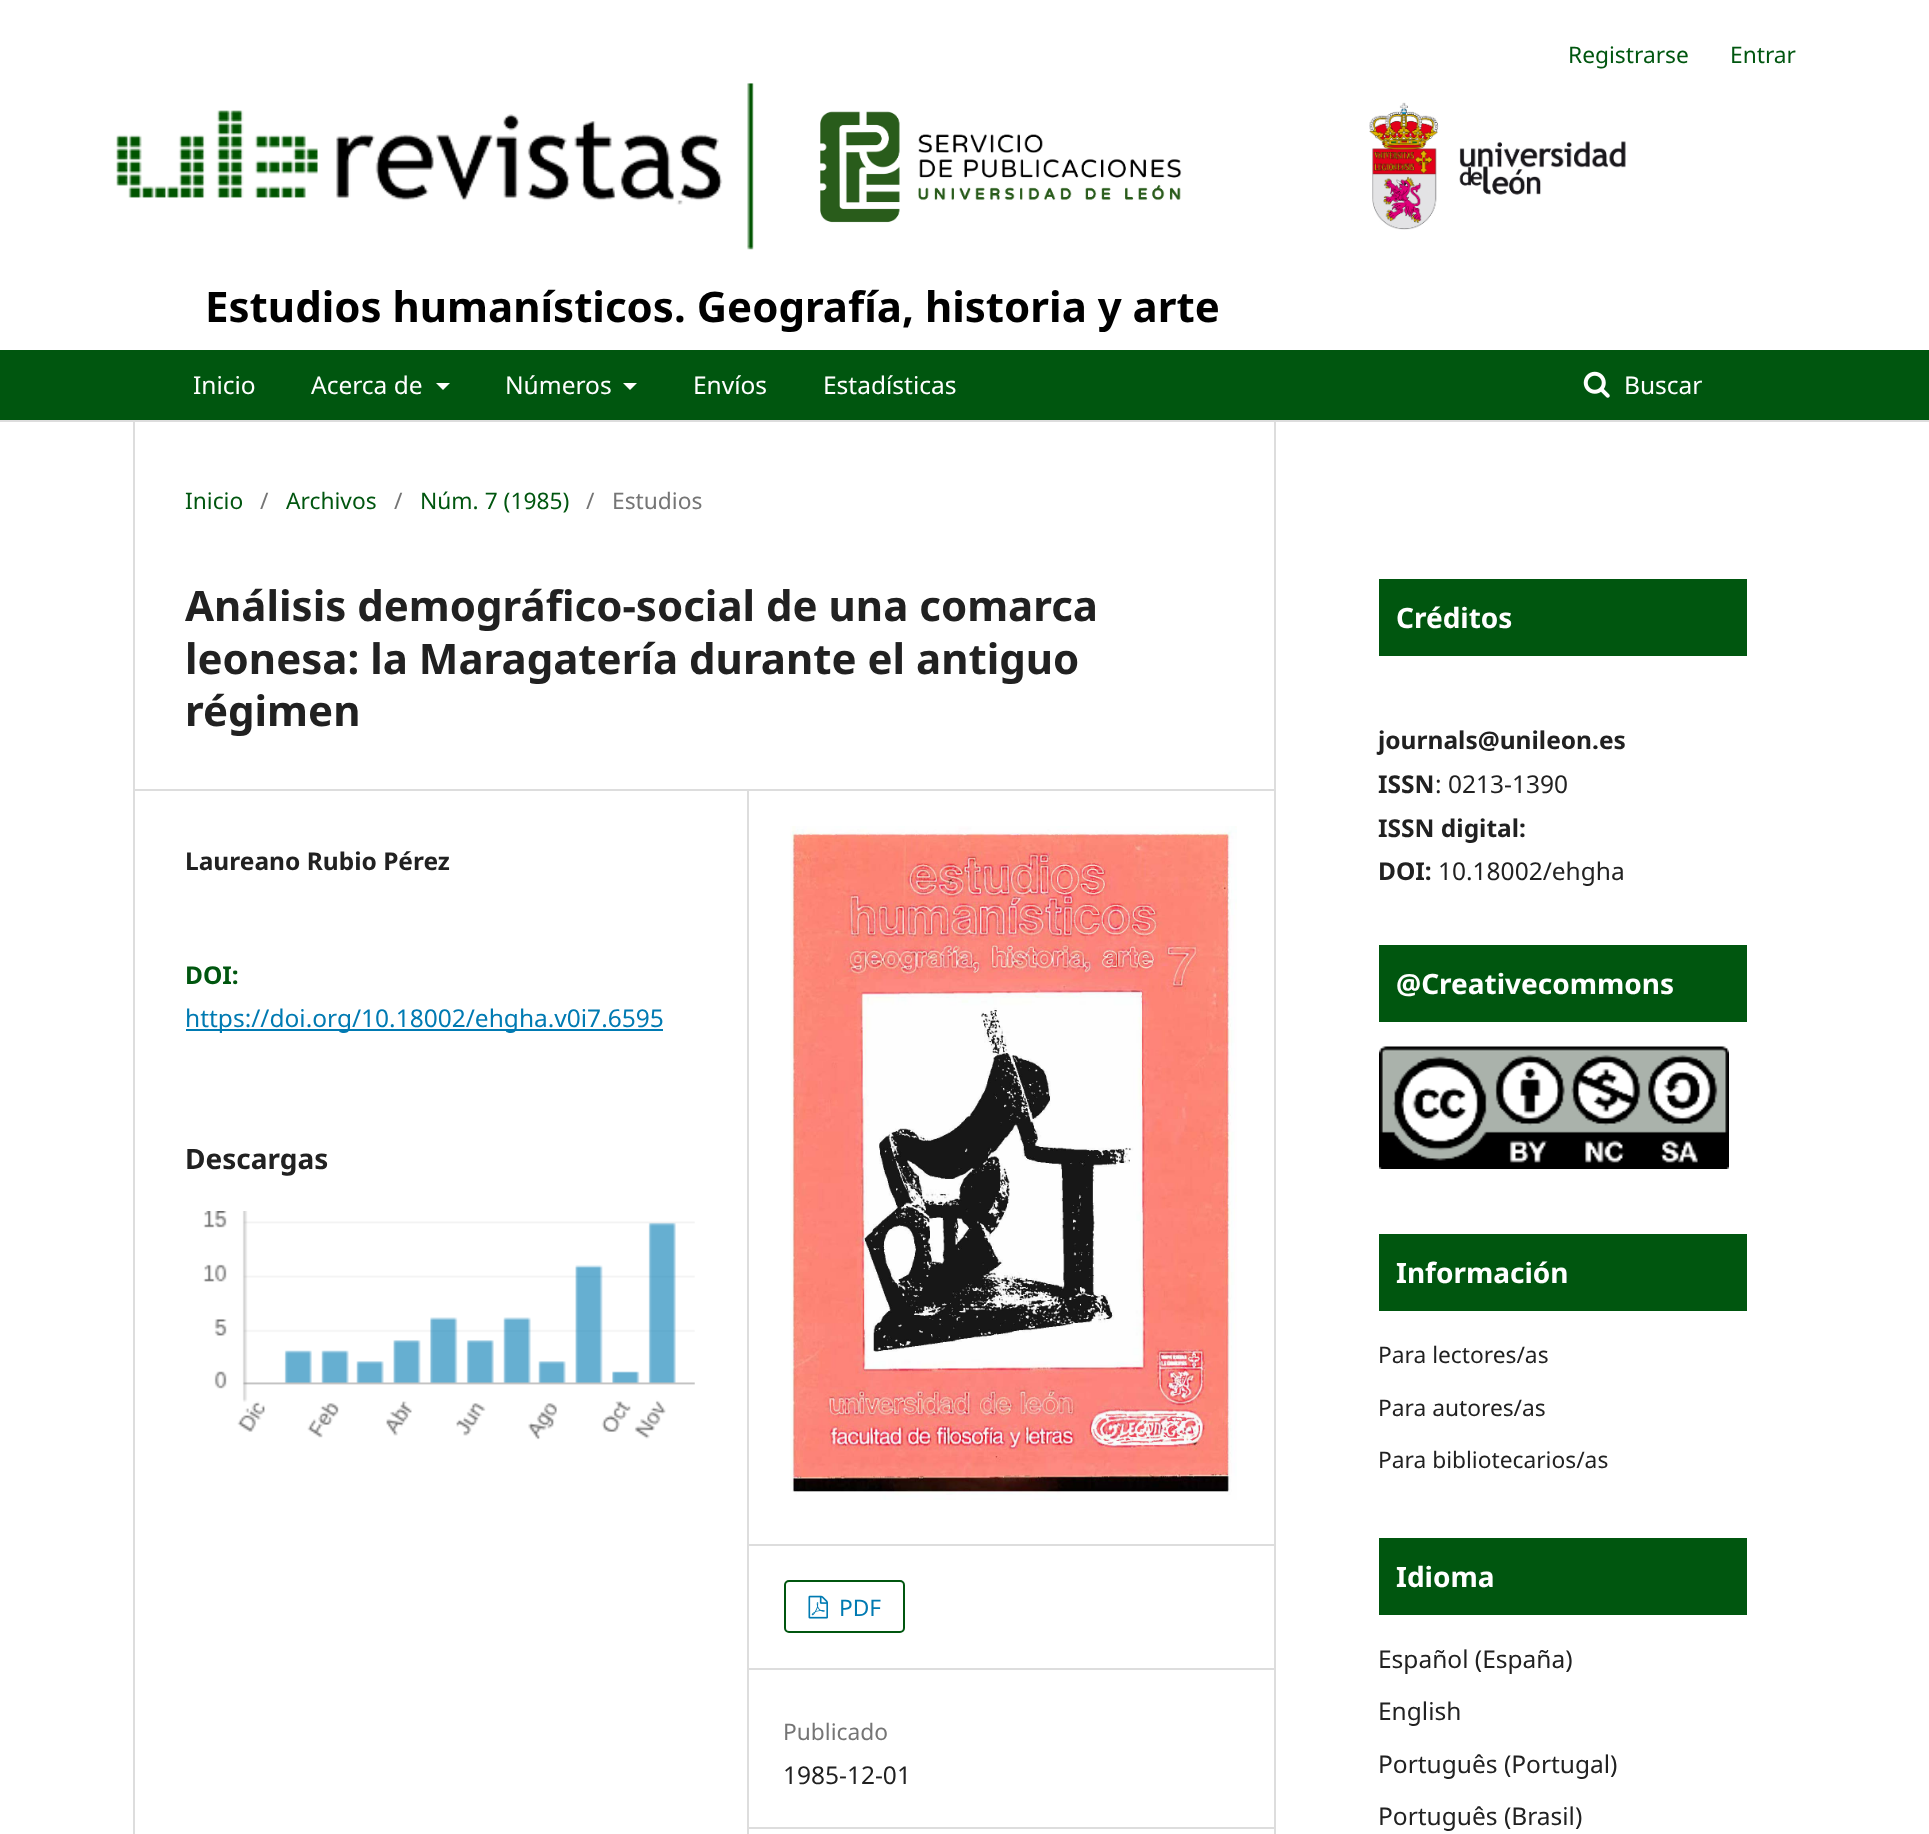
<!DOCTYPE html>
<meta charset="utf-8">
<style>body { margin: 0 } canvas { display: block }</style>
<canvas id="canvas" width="1929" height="1834"></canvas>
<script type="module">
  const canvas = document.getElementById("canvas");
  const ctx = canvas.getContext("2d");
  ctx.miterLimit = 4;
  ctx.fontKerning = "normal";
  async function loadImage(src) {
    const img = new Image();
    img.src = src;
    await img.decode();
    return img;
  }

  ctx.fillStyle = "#ffffff";
  ctx.fillRect(0, 0, 1929, 1834);
  ctx.fillStyle = "#dddddd";
  ctx.fillRect(0, 420, 1929, 2);
  ctx.font = "22.75px Noto Sans";
  ctx.fillStyle = "#00560f";
  ctx.fillText("Registrarse", 1568, 63);
  ctx.fillText("Entrar", 1730, 63);
  ctx.drawImage(await loadImage("img1.png"), 116, 83, 638, 167);
  ctx.drawImage(await loadImage("img2.png"), 820, 111, 362, 112);
  ctx.drawImage(await loadImage("img3.png"), 1369, 102, 257, 128);
  ctx.font = "bold 42px Noto Sans";
  ctx.fillStyle = "#000000";
  ctx.fillText("Estudios humanísticos. Geografía, historia y arte", 205, 322);
  ctx.fillStyle = "#00560f";
  ctx.fillRect(0, 350, 1929, 70);
  ctx.font = "24.5px Noto Sans";
  ctx.fillStyle = "#ffffff";
  ctx.fillText("Inicio", 193, 394);
  ctx.fillText("Acerca de", 311, 394);
  ctx.beginPath();
  ctx.moveTo(436, 383);
  ctx.lineTo(450, 383);
  ctx.lineTo(443, 390);
  ctx.closePath();
  ctx.fill();
  ctx.fillText("Números", 505, 394);
  ctx.beginPath();
  ctx.moveTo(623, 383);
  ctx.lineTo(637, 383);
  ctx.lineTo(630, 390);
  ctx.closePath();
  ctx.fill();
  ctx.fillText("Envíos", 693, 394);
  ctx.fillText("Estadísticas", 823, 394);
  ctx.drawImage(await loadImage("img4.png"), 1583, 371, 27, 27);
  ctx.fillText("Buscar", 1624, 394);
  ctx.fillStyle = "#dddddd";
  ctx.fillRect(133, 789, 1141, 2);
  ctx.fillRect(133, 422, 2, 1412);
  ctx.font = "22.75px Noto Sans";
  ctx.fillStyle = "#00560f";
  ctx.fillText("Inicio", 185, 509);
  ctx.fillStyle = "#757575";
  ctx.fillText("/", 260, 509);
  ctx.fillStyle = "#00560f";
  ctx.fillText("Archivos", 286, 509);
  ctx.fillStyle = "#757575";
  ctx.fillText("/", 394, 509);
  ctx.fillStyle = "#00560f";
  ctx.fillText("Núm. 7 (1985)", 420, 509);
  ctx.fillStyle = "#757575";
  ctx.fillText("/", 586, 509);
  ctx.fillText("Estudios", 612, 509);
  ctx.font = "bold 42px Noto Sans";
  ctx.fillStyle = "#212121";
  ctx.fillText("Análisis demográfico-social de una comarca", 185, 621);
  ctx.fillText("leonesa: la Maragatería durante el antiguo", 185, 674);
  ctx.fillText("régimen", 185, 726);
  ctx.font = "bold 24.5px Noto Sans";
  ctx.fillText("Laureano Rubio Pérez", 185, 870);
  ctx.fillStyle = "#00560f";
  ctx.fillText("DOI:", 185, 984);
  ctx.fillStyle = "#007ab2";
  ctx.fillRect(186, 1029, 477, 2);
  ctx.font = "24.5px Noto Sans";
  ctx.fillText("https://doi.org/10.18002/ehgha.v0i7.6595", 185, 1027);
  ctx.font = "bold 28px Noto Sans";
  ctx.fillStyle = "#212121";
  ctx.fillText("Descargas", 185, 1169);
  ctx.drawImage(await loadImage("img5.png"), 203, 1211, 492, 229);
  ctx.fillStyle = "#dddddd";
  ctx.fillRect(747, 791, 2, 1043);
  ctx.fillRect(749, 1544, 525, 2);
  ctx.drawImage(await loadImage("img6.png"), 790, 826, 447, 674);
  ctx.fillRect(749, 1668, 525, 2);
  ctx.beginPath();
  ctx.roundRect(785, 1581, 119, 51, 4);
  ctx.strokeStyle = "#00560f";
  ctx.lineWidth = 2;
  ctx.stroke();
  ctx.drawImage(await loadImage("img7.png"), 808, 1595, 20, 24);
  ctx.font = "22.75px Noto Sans";
  ctx.fillStyle = "#007ab2";
  ctx.fillText("PDF", 839, 1616);
  ctx.fillStyle = "#dddddd";
  ctx.fillRect(749, 1827, 525, 2);
  ctx.fillStyle = "#757575";
  ctx.fillText("Publicado", 783, 1740);
  ctx.font = "24.5px Noto Sans";
  ctx.fillStyle = "#212121";
  ctx.fillText("1985-12-01", 783, 1784);
  ctx.fillStyle = "#dddddd";
  ctx.fillRect(1274, 422, 2, 1412);
  ctx.fillStyle = "#00560f";
  ctx.fillRect(1379, 579, 368, 77);
  ctx.font = "bold 28px Noto Sans";
  ctx.fillStyle = "#ffffff";
  ctx.fillText("Créditos", 1396, 628);
  ctx.font = "bold 24.5px Noto Sans";
  ctx.fillStyle = "#212121";
  ctx.fillText("journals@unileon.es", 1378, 749);
  ctx.fillText("ISSN", 1378, 793);
  ctx.font = "24.5px Noto Sans";
  ctx.fillText(": 0213-1390", 1435, 793);
  ctx.font = "bold 24.5px Noto Sans";
  ctx.fillText("ISSN digital:", 1378, 837);
  ctx.fillText("DOI:", 1378, 880);
  ctx.font = "24.5px Noto Sans";
  ctx.fillText("10.18002/ehgha", 1438, 880);
  ctx.fillStyle = "#00560f";
  ctx.fillRect(1379, 945, 368, 77);
  ctx.font = "bold 28px Noto Sans";
  ctx.fillStyle = "#ffffff";
  ctx.fillText("@Creativecommons", 1396, 994);
  ctx.drawImage(await loadImage("img8.png"), 1379, 1046, 350, 123);
  ctx.fillStyle = "#00560f";
  ctx.fillRect(1379, 1234, 368, 77);
  ctx.fillStyle = "#ffffff";
  ctx.fillText("Información", 1396, 1283);
  ctx.font = "22.75px Noto Sans";
  ctx.fillStyle = "#212121";
  ctx.fillText("Para lectores/as", 1378, 1363);
  ctx.fillText("Para autores/as", 1378, 1416);
  ctx.fillText("Para bibliotecarios/as", 1378, 1468);
  ctx.fillStyle = "#00560f";
  ctx.fillRect(1379, 1538, 368, 77);
  ctx.font = "bold 28px Noto Sans";
  ctx.fillStyle = "#ffffff";
  ctx.fillText("Idioma", 1396, 1587);
  ctx.font = "24.5px Noto Sans";
  ctx.fillStyle = "#212121";
  ctx.fillText("Español (España)", 1378, 1668);
  ctx.fillText("English", 1378, 1720);
  ctx.fillText("Português (Portugal)", 1378, 1773);
  ctx.fillText("Português (Brasil)", 1378, 1825);
</script>
